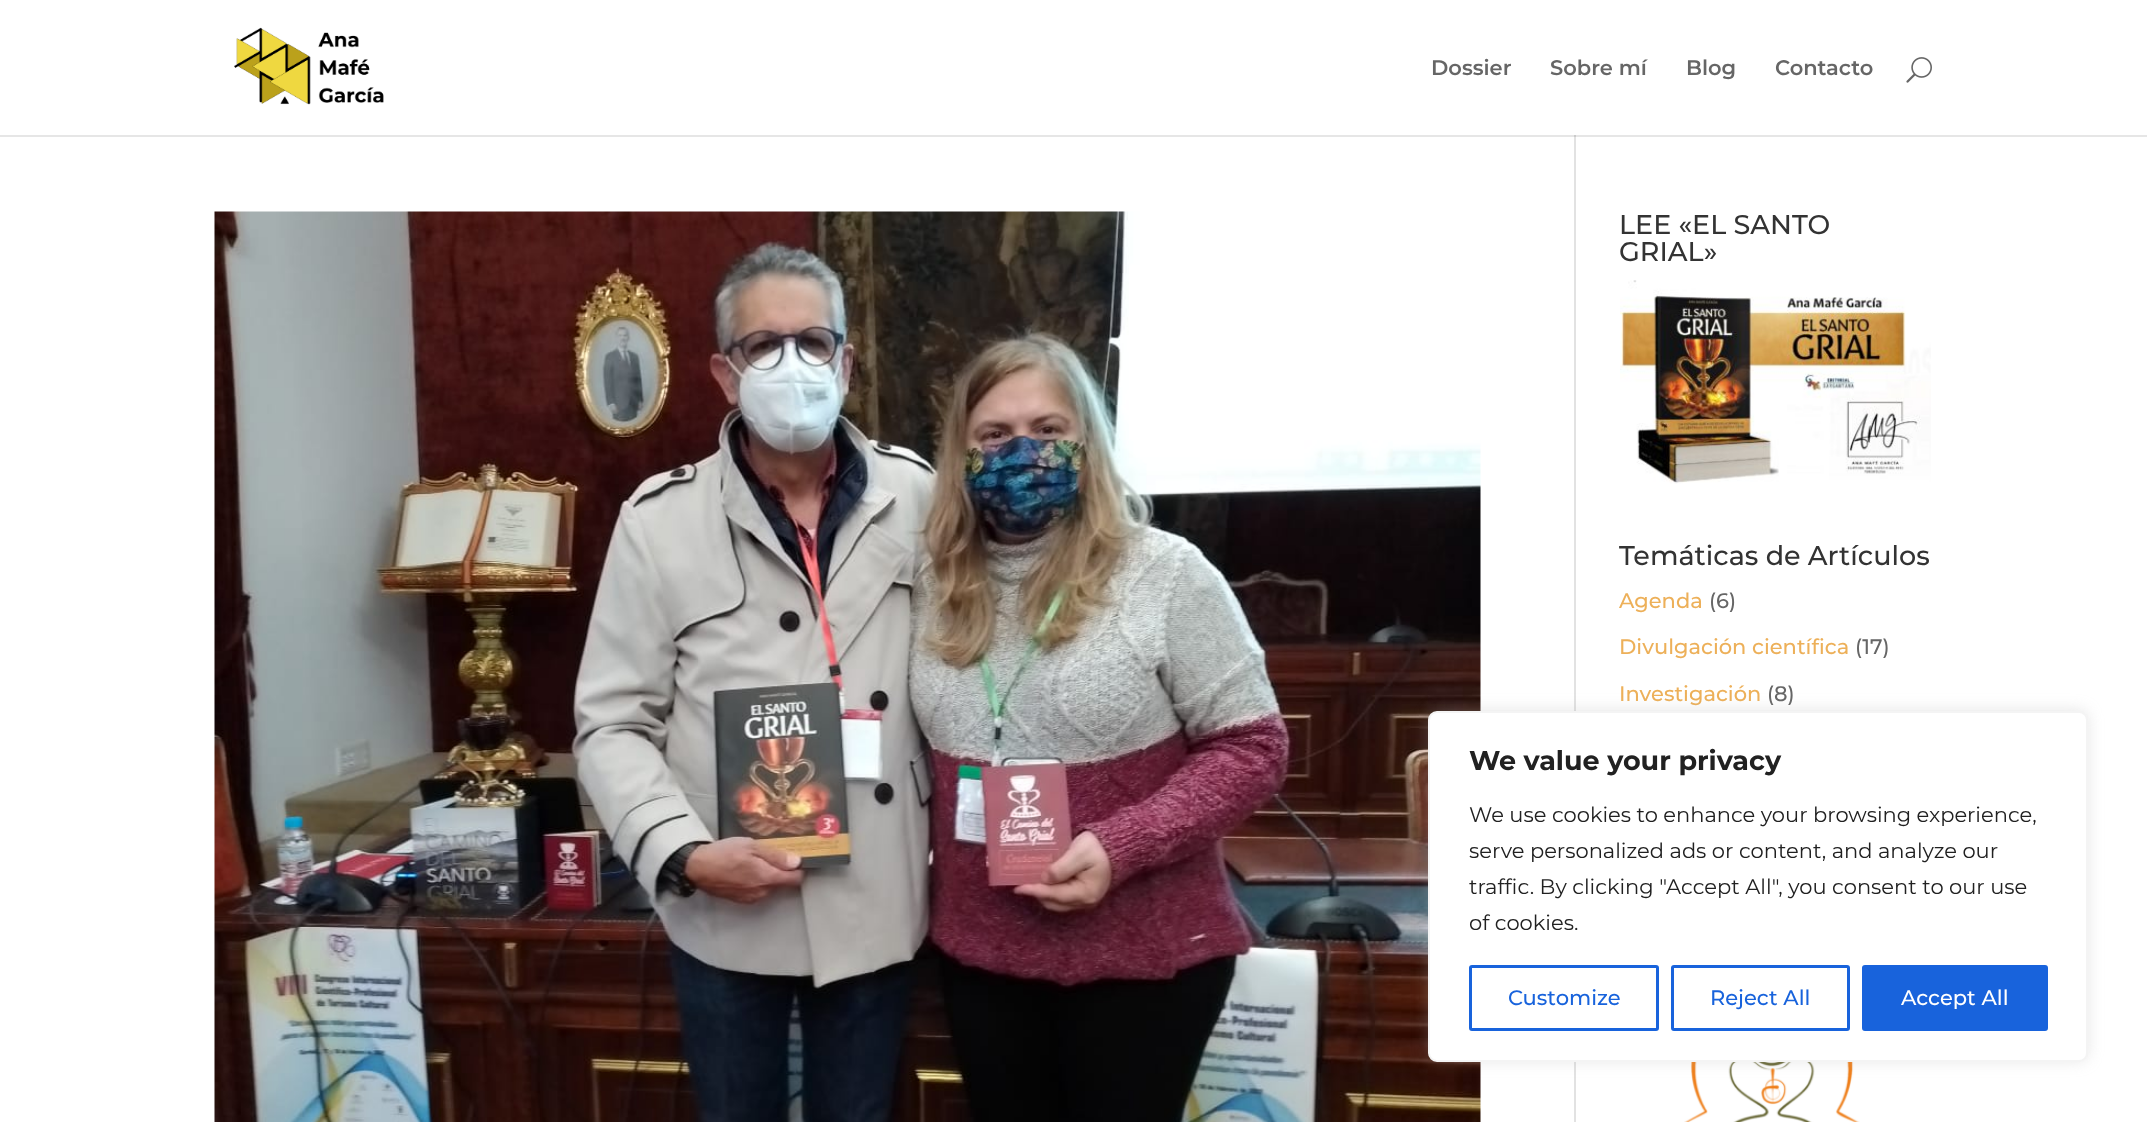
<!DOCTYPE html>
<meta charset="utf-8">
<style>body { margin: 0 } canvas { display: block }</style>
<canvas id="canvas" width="2147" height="1122"></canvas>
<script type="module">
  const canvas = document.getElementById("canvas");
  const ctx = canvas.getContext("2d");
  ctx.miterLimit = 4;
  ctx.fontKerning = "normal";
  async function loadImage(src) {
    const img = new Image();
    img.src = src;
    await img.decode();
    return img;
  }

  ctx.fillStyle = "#ffffff";
  ctx.fillRect(0, 0, 2147, 1122);
  ctx.fillStyle = "#e6e6e6";
  ctx.fillRect(0, 135, 2147, 2);
  ctx.drawImage(await loadImage("img1.png"), 234, 27, 150, 78);
  ctx.font = "600 21px Montserrat";
  ctx.fillStyle = "#666666";
  ctx.fillText("Dossier", 1431, 75);
  ctx.fillText("Sobre mí", 1550, 75);
  ctx.fillText("Blog", 1686, 75);
  ctx.fillText("Contacto", 1775, 75);
  ctx.drawImage(await loadImage("img2.png"), 1906, 57, 26, 26);
  ctx.fillStyle = "#e2e2e2";
  ctx.fillRect(1574, 137, 2, 985);
  ctx.fillStyle = "#cbcbcb";
  ctx.fillRect(1574, 135, 2, 2);
  ctx.drawImage(await loadImage("img3.png"), 214, 211, 1267, 911);
  ctx.font = "500 27px Montserrat";
  ctx.fillStyle = "#333333";
  ctx.fillText("LEE «EL SANTO", 1619, 234);
  ctx.fillText("GRIAL»", 1619, 261);
  ctx.drawImage(await loadImage("img4.png"), 1620, 280, 311, 204);
  ctx.fillText("Temáticas de Artículos", 1619, 565);
  ctx.font = "500 21px Montserrat";
  ctx.fillStyle = "#edb059";
  ctx.fillText("Agenda", 1619, 608);
  ctx.fillStyle = "#666666";
  ctx.fillText("(6)", 1709, 608);
  ctx.fillStyle = "#edb059";
  ctx.fillText("Divulgación científica", 1619, 654);
  ctx.fillStyle = "#666666";
  ctx.fillText("(17)", 1855, 654);
  ctx.fillStyle = "#edb059";
  ctx.fillText("Investigación", 1619, 701);
  ctx.fillStyle = "#666666";
  ctx.fillText("(8)", 1767, 701);
  ctx.drawImage(await loadImage("img5.png"), 1684, 1062, 176, 60);
  ctx.fillStyle = "rgba(172, 171, 171, 0.3)";
  ctx.filter = "blur(7.5px)";
  ctx.beginPath();
  ctx.roundRect(1428, 710, 660, 351, 9);
  ctx.fill();
  ctx.filter = "none";
  ctx.fillStyle = "#ffffff";
  ctx.beginPath();
  ctx.roundRect(1429, 712, 658, 349, 8);
  ctx.fill();
  ctx.strokeStyle = "#f4f4f4";
  ctx.lineWidth = 2;
  ctx.stroke();
  ctx.font = "bold 27px Montserrat";
  ctx.fillStyle = "#212121";
  ctx.fillText("We value your privacy", 1469, 770);
  ctx.font = "21px Montserrat";
  ctx.fillText("We use cookies to enhance your browsing experience,", 1469, 822);
  ctx.fillText("serve personalized ads or content, and analyze our", 1469, 858);
  ctx.fillText("traffic. By clicking \"Accept All\", you consent to our use", 1469, 894);
  ctx.fillText("of cookies.", 1469, 930);
  ctx.beginPath();
  ctx.roundRect(1470.5, 966.5, 187, 63, 1.5);
  ctx.strokeStyle = "#1863dc";
  ctx.lineWidth = 3;
  ctx.stroke();
  ctx.font = "500 21px Montserrat";
  ctx.fillStyle = "#1863dc";
  ctx.fillText("Customize", 1508, 1005);
  ctx.beginPath();
  ctx.roundRect(1672.5, 966.5, 176, 63, 1.5);
  ctx.stroke();
  ctx.fillText("Reject All", 1710, 1005);
  ctx.beginPath();
  ctx.roundRect(1863.5, 966.5, 183, 63, 1.5);
  ctx.fill();
  ctx.stroke();
  ctx.fillStyle = "#ffffff";
  ctx.fillText("Accept All", 1901, 1005);
</script>
